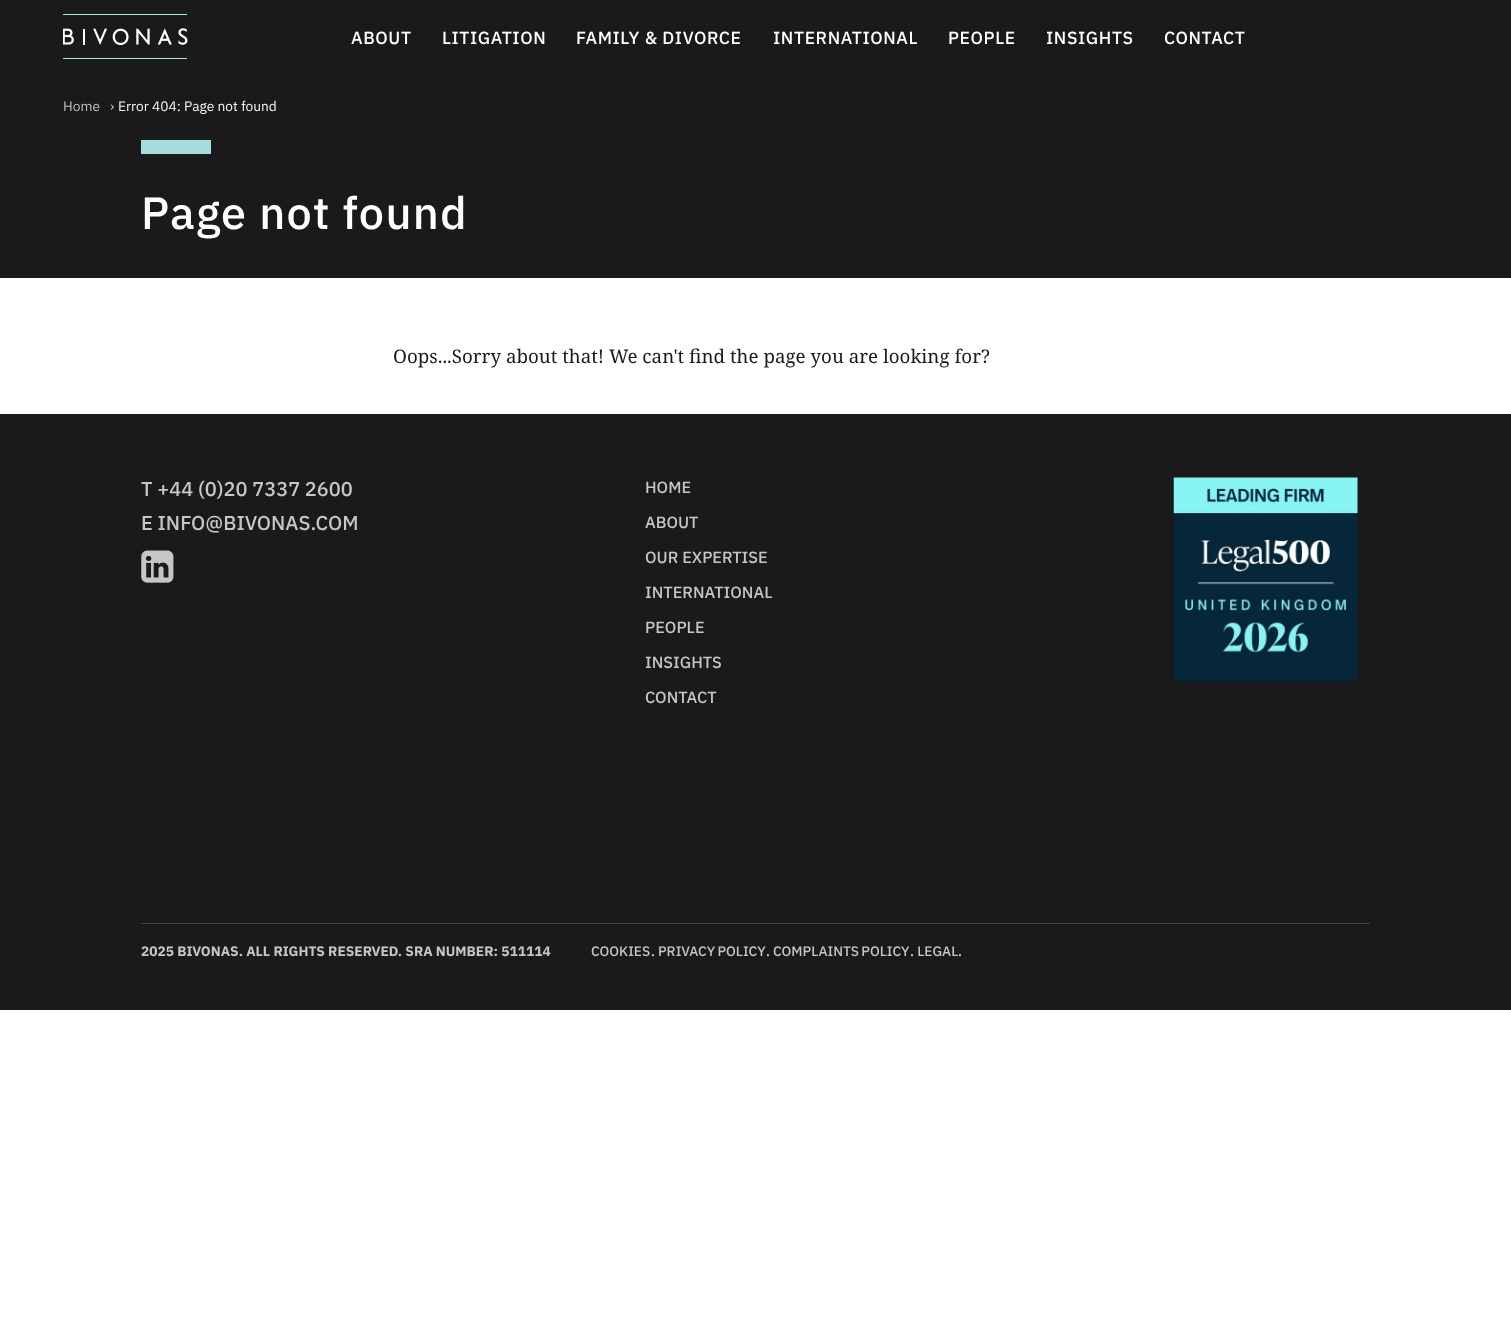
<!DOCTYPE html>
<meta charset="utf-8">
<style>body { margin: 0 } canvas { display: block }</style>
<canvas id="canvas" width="1511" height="1325"></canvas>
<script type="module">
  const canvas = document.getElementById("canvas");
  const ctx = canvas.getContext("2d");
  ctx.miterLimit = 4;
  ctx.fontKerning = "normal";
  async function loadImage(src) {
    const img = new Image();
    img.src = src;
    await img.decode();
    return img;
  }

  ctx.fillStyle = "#ffffff";
  ctx.fillRect(0, 0, 1511, 1325);
  ctx.fillStyle = "#1a1a1a";
  ctx.fillRect(0, 0, 1511, 278);
  ctx.drawImage(await loadImage("img1.png"), 63, 14, 125, 45);
  ctx.letterSpacing = "0.6px";
  ctx.font = "500 17.5px IBM Plex Sans";
  ctx.fillStyle = "#ffffff";
  ctx.fillText("ABOUT", 351, 44);
  ctx.fillText("LITIGATION", 442, 44);
  ctx.fillText("FAMILY & DIVORCE", 576, 44);
  ctx.fillText("INTERNATIONAL", 773, 44);
  ctx.fillText("PEOPLE", 948, 44);
  ctx.fillText("INSIGHTS", 1046, 44);
  ctx.fillText("CONTACT", 1164, 44);
  ctx.letterSpacing = "0px";
  ctx.font = "13.75px IBM Plex Sans";
  ctx.fillStyle = "#c2bcc1";
  ctx.fillText("Home", 63, 111);
  ctx.fillText("›", 110, 111);
  ctx.fillStyle = "#f8f5f5";
  ctx.fillText("Error 404: Page not found", 118, 111);
  ctx.fillStyle = "#a7dcdf";
  ctx.fillRect(141, 140, 70, 14);
  ctx.letterSpacing = "1.25px";
  ctx.font = "500 45px IBM Plex Sans";
  ctx.fillStyle = "#ffffff";
  ctx.fillText("Page not found", 141, 229);
  ctx.letterSpacing = "0px";
  ctx.font = "18.75px Noto Serif";
  ctx.fillStyle = "#1a1a1a";
  ctx.fillText("Oops...Sorry about that! We can't find the page you are looking for?", 393, 363);
  ctx.fillRect(0, 414, 1511, 596);
  ctx.font = "500 20px IBM Plex Sans";
  ctx.fillStyle = "#c6c6c6";
  ctx.fillText("T +44 (0)20 7337 2600", 141, 496);
  ctx.fillText("E INFO@BIVONAS.COM", 141, 530);
  ctx.drawImage(await loadImage("img2.png"), 141, 550, 33, 33);
  ctx.font = "500 16.25px IBM Plex Sans";
  ctx.fillText("HOME", 645, 493);
  ctx.fillText("ABOUT", 645, 528);
  ctx.fillText("OUR EXPERTISE", 645, 563);
  ctx.fillText("INTERNATIONAL", 645, 598);
  ctx.fillText("PEOPLE", 645, 633);
  ctx.fillText("INSIGHTS", 645, 668);
  ctx.fillText("CONTACT", 645, 703);
  ctx.drawImage(await loadImage("img3.png"), 1173, 477, 185, 205);
  ctx.fillStyle = "#3a3f42";
  ctx.fillRect(141, 923, 1229, 1);
  ctx.font = "bold 13.75px IBM Plex Sans";
  ctx.fillStyle = "#c6c6c6";
  ctx.fillText("2025 BIVONAS. ALL RIGHTS RESERVED. SRA NUMBER: 511114", 141, 956);
  ctx.font = "500 13.75px IBM Plex Sans";
  ctx.fillText("COOKIES", 591, 956);
  ctx.fillText(".", 651, 956);
  ctx.wordSpacing = "-1px";
  ctx.fillText("PRIVACY POLICY", 658, 956);
  ctx.wordSpacing = "0px";
  ctx.fillText(".", 766, 956);
  ctx.wordSpacing = "-1px";
  ctx.fillText("COMPLAINTS POLICY", 773, 956);
  ctx.wordSpacing = "0px";
  ctx.fillText(". LEGAL", 910, 956);
  ctx.fillText(".", 958, 956);
</script>
